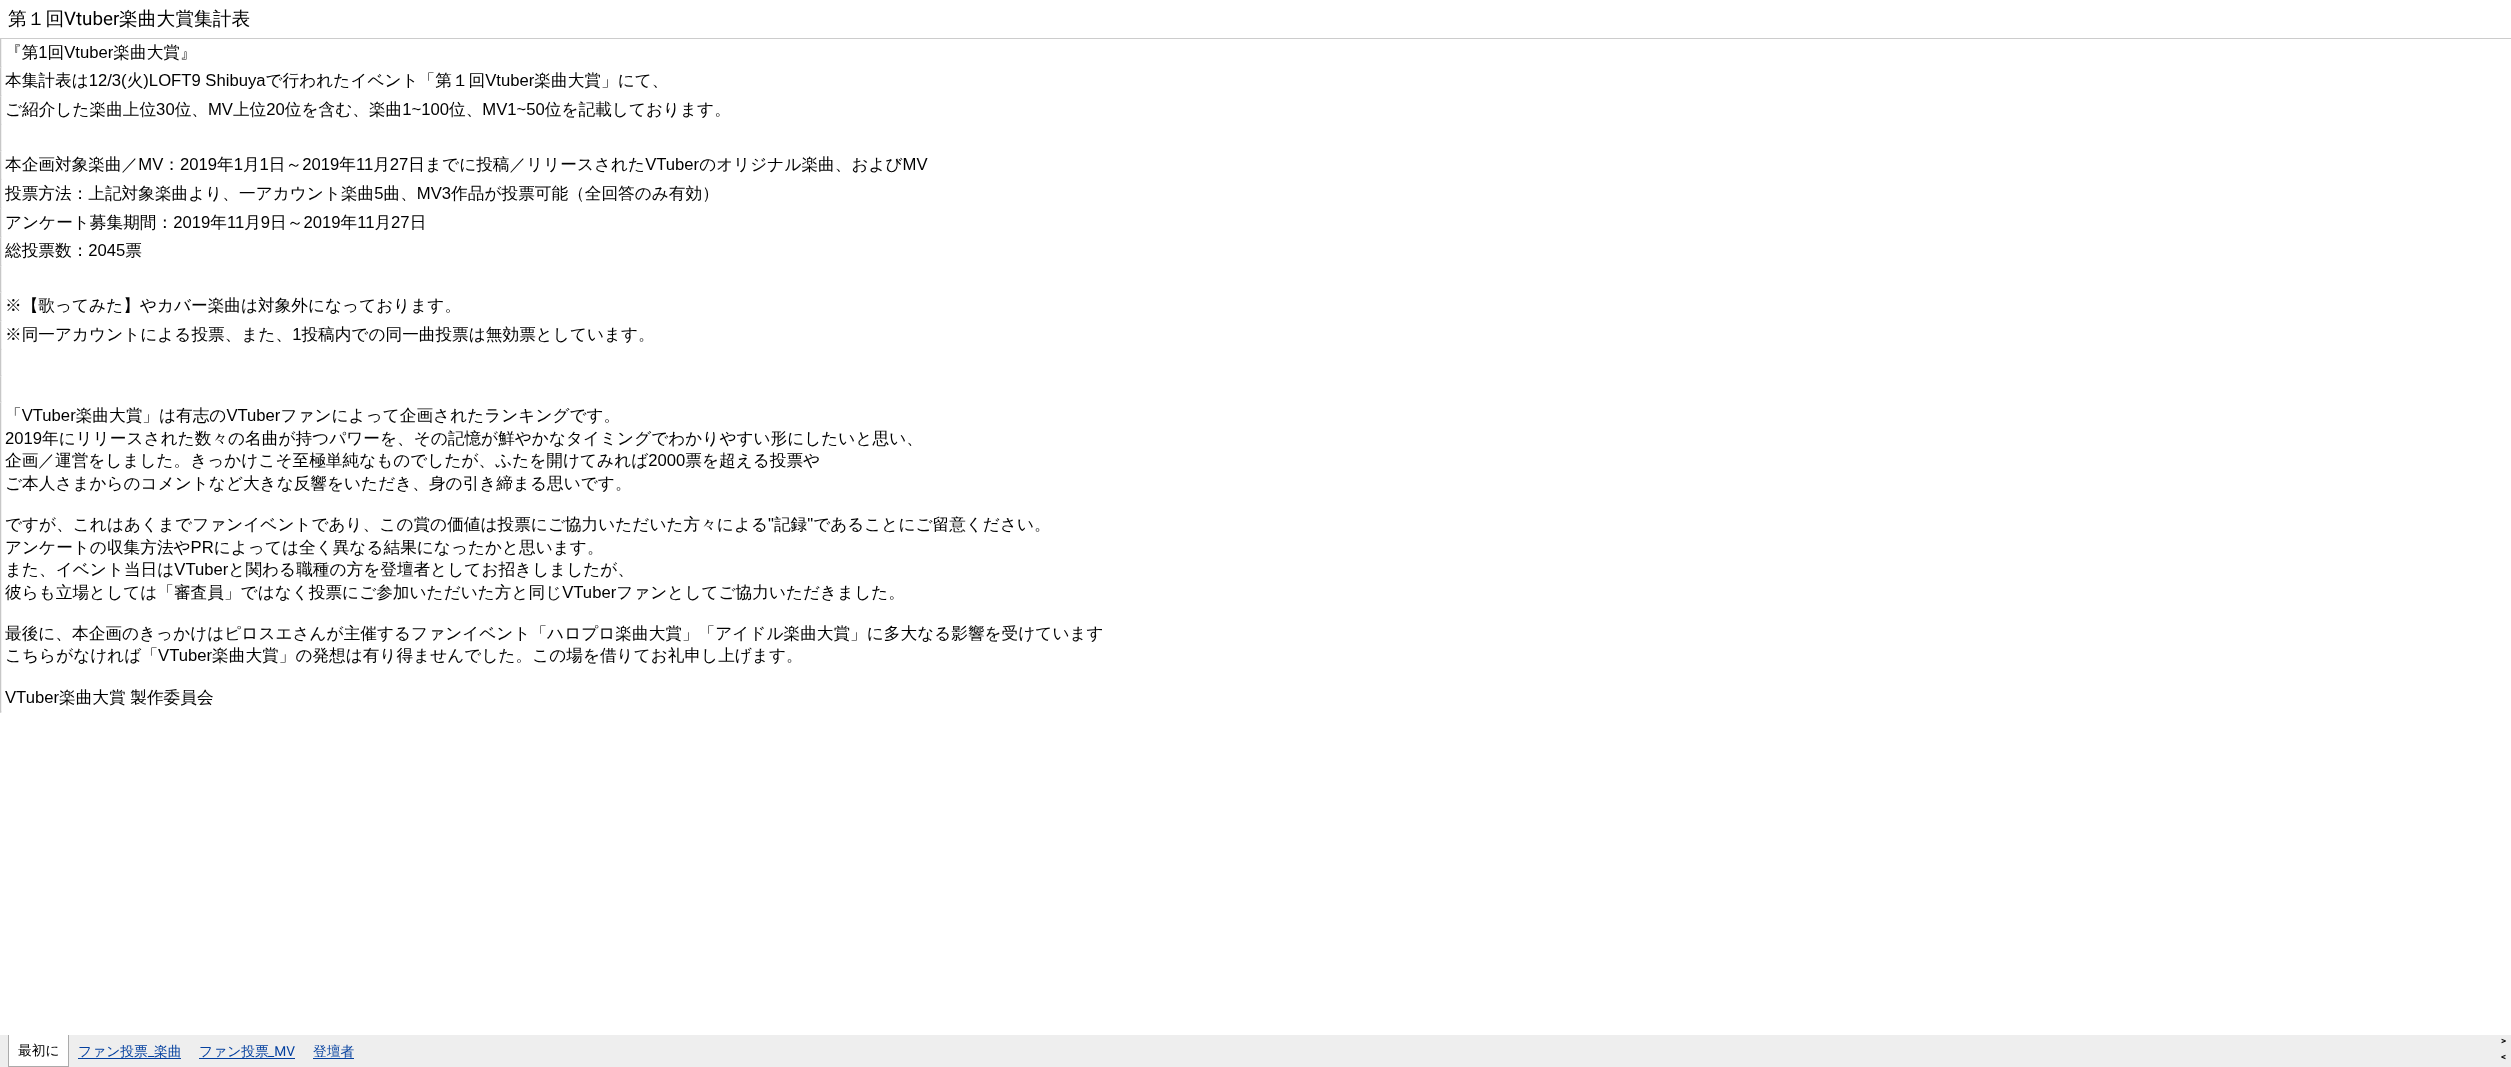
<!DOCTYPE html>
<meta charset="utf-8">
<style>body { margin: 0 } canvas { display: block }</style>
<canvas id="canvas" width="2511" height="1067"></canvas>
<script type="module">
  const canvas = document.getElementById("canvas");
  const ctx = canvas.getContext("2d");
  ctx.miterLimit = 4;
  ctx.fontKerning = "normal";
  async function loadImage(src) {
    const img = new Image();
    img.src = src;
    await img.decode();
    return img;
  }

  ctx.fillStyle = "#ffffff";
  ctx.fillRect(0, 0, 2511, 1067);
  ctx.fillStyle = "#cccccc";
  ctx.fillRect(0, 38, 2511, 1);
  ctx.font = "500 18.75px WenQuanYi Zen Hei";
  ctx.fillStyle = "#000000";
  ctx.fillText("第１回", 8, 25);
  ctx.font = "18.75px Roboto";
  ctx.fillText("Vtuber", 64, 25);
  ctx.font = "500 18.75px WenQuanYi Zen Hei";
  ctx.fillText("楽曲大賞集計表", 119, 25);
  ctx.drawImage(await loadImage("img1.png"), 0, 39, 1102, 674);
  ctx.fillStyle = "#eeeeee";
  ctx.fillRect(0, 1035, 2511, 32);
  ctx.fillStyle = "#ffffff";
  ctx.fillRect(9, 1035, 59, 31);
  ctx.fillStyle = "#ababab";
  ctx.fillRect(68, 1035, 1, 32);
  ctx.fillRect(8, 1066, 61, 1);
  ctx.fillRect(8, 1035, 1, 32);
  ctx.font = "500 13.75px WenQuanYi Zen Hei";
  ctx.fillStyle = "#000000";
  ctx.fillText("最初に", 18, 1055);
  ctx.fillStyle = "#04409f";
  ctx.fillText("ファン投票", 78, 1056);
  ctx.font = "13.75px Roboto";
  ctx.fillText("_", 148, 1056);
  ctx.fillRect(78, 1058, 103, 1);
  ctx.font = "500 13.75px WenQuanYi Zen Hei";
  ctx.fillText("楽曲", 154, 1056);
  ctx.fillText("ファン投票", 199, 1056);
  ctx.font = "13.75px Roboto";
  ctx.fillText("_MV", 268, 1056);
  ctx.fillRect(199, 1058, 96, 1);
  ctx.font = "500 13.75px WenQuanYi Zen Hei";
  ctx.fillText("登壇者", 313, 1056);
  ctx.fillRect(313, 1058, 41, 1);
  ctx.font = "bold 10px Roboto";
  ctx.fillStyle = "#000000";
  ctx.fillText(">", 2501, 1044);
  ctx.fillText("<", 2501, 1060);
</script>
